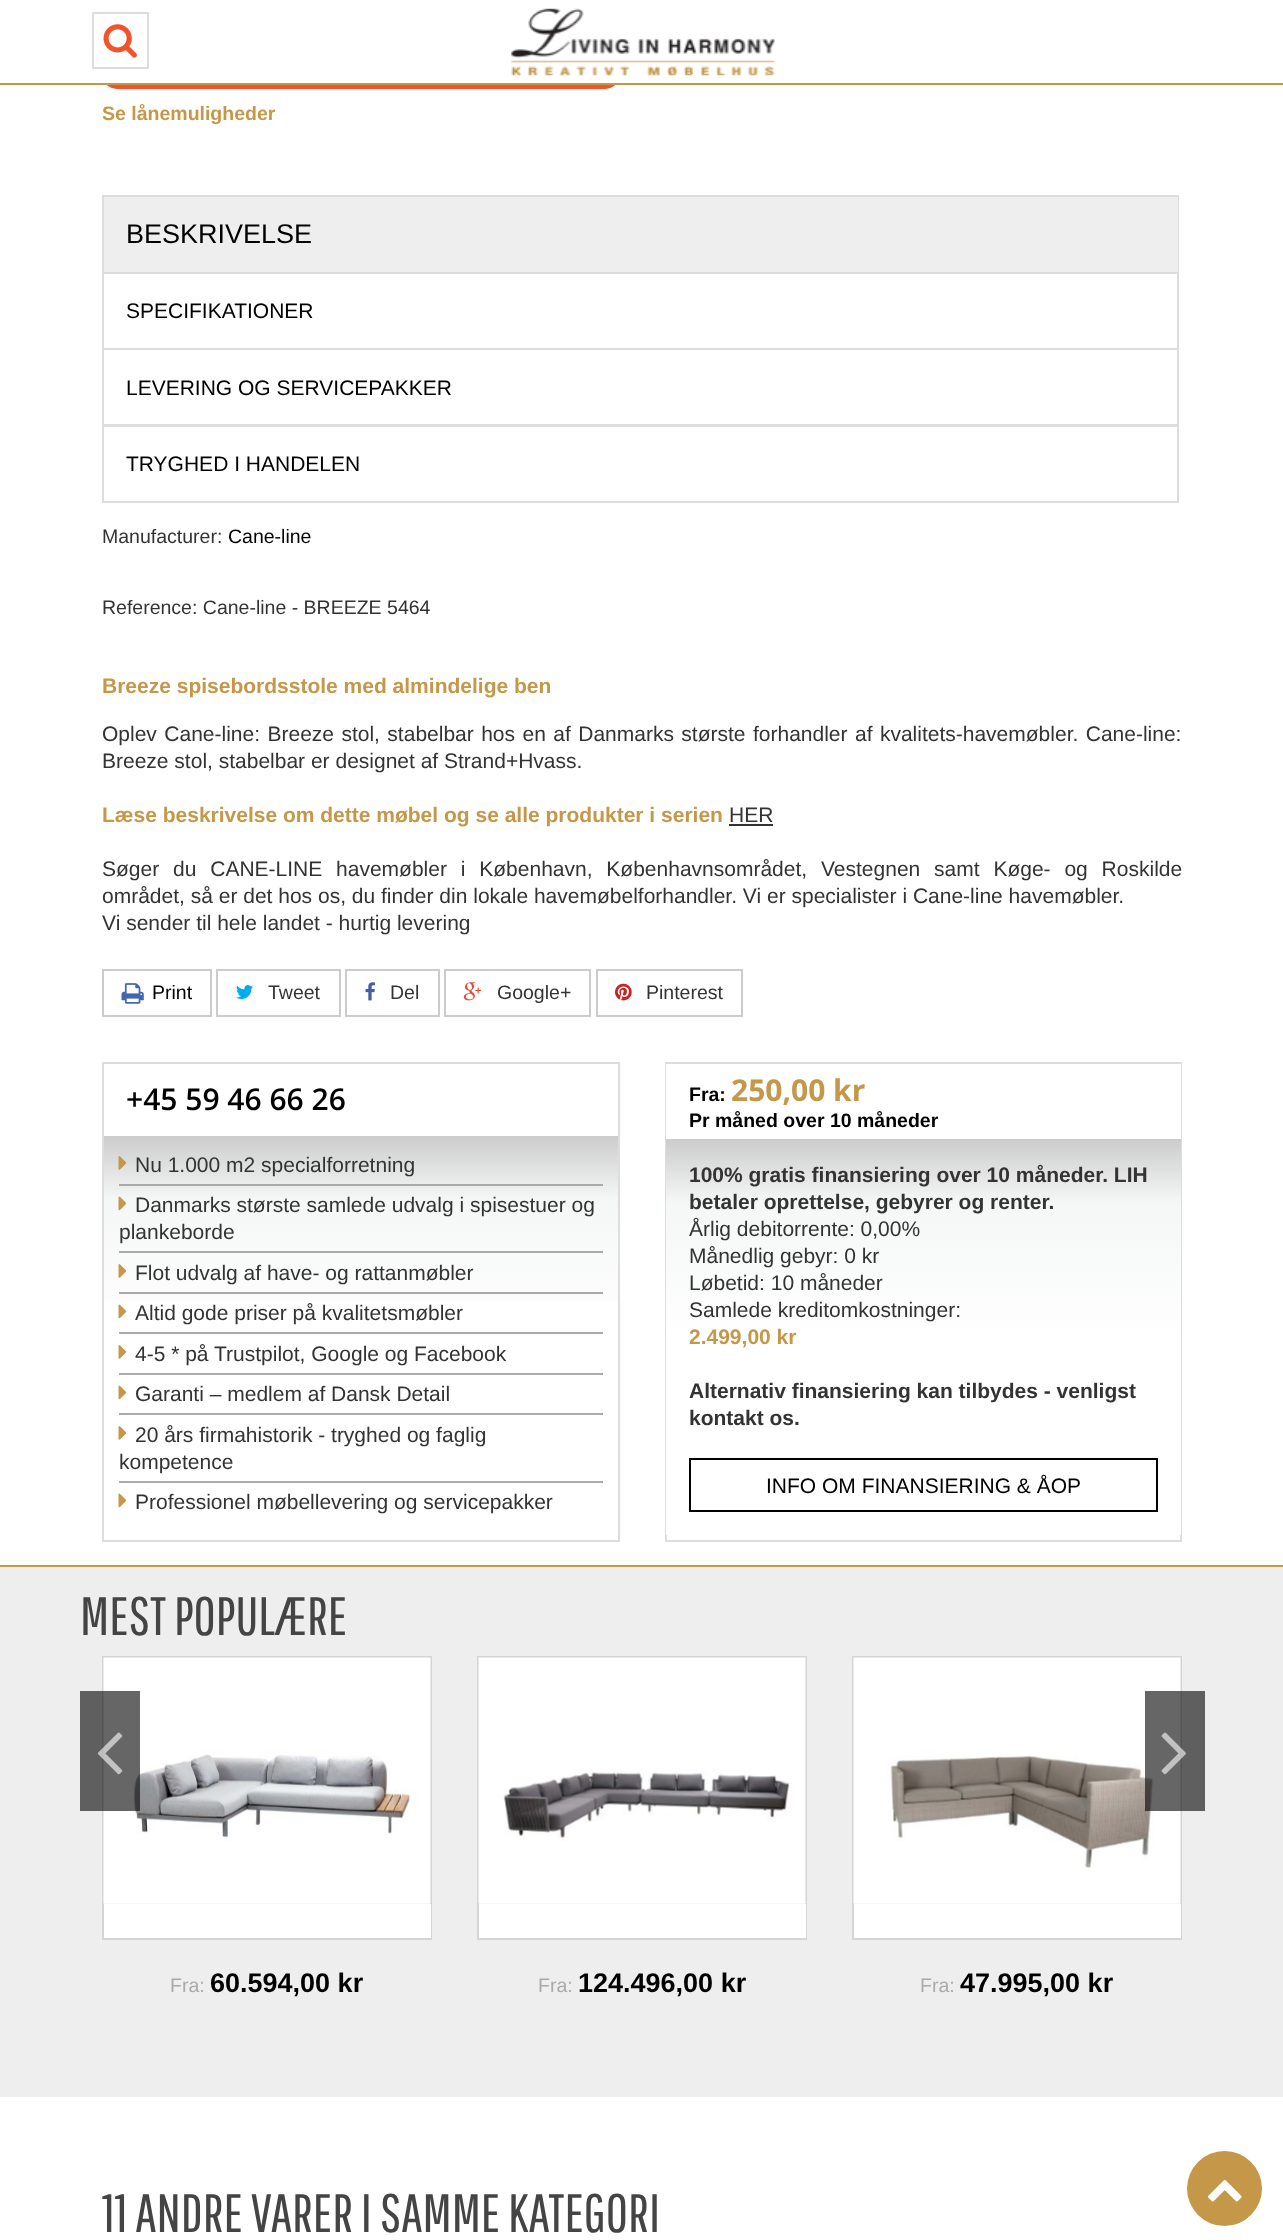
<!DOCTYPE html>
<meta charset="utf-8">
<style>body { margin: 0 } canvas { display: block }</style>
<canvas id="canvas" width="1283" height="2240"></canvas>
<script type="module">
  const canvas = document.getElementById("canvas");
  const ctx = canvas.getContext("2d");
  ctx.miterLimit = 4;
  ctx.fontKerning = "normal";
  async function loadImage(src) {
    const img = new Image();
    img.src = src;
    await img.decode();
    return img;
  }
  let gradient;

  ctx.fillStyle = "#ffffff";
  ctx.fillRect(0, 0, 1283, 2240);
  ctx.beginPath();
  ctx.roundRect(106, -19, 510, 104, 11);
  ctx.strokeStyle = "#f2532f";
  ctx.lineWidth = 8;
  ctx.stroke();
  ctx.fillStyle = "#c59748";
  ctx.fillRect(0, 83, 1283, 2);
  ctx.fillStyle = "#ffffff";
  ctx.fillRect(102, 0, 518, 83);
  ctx.strokeStyle = "#dddddd";
  ctx.lineWidth = 2;
  ctx.strokeRect(93, 13, 55, 55);
  ctx.drawImage(await loadImage("img1.png"), 103, 24, 34, 34);
  ctx.drawImage(await loadImage("img2.png"), 511, 8, 264, 68);
  ctx.font = "bold 19.5px Liberation Sans";
  ctx.fillStyle = "#c59748";
  ctx.fillText("Se lånemuligheder", 102, 120);
  ctx.fillStyle = "#eeeeee";
  ctx.fillRect(104, 197, 1074, 75);
  ctx.fillStyle = "#dddddd";
  ctx.fillRect(102, 195, 1077, 2);
  ctx.beginPath();
  ctx.moveTo(1179, 195);
  ctx.lineTo(1179, 273);
  ctx.lineTo(1178, 272);
  ctx.lineTo(1178, 196);
  ctx.closePath();
  ctx.fill();
  ctx.beginPath();
  ctx.moveTo(102, 273);
  ctx.lineTo(102, 195);
  ctx.lineTo(104, 196);
  ctx.lineTo(104, 272);
  ctx.closePath();
  ctx.fill();
  ctx.font = "27px Liberation Sans";
  ctx.fillStyle = "#000000";
  ctx.fillText("BESKRIVELSE", 126, 243);
  ctx.strokeRect(103, 273, 1075, 76);
  ctx.font = "21px Liberation Sans";
  ctx.fillText("SPECIFIKATIONER", 126, 318);
  ctx.strokeRect(103, 349, 1075, 76);
  ctx.fillText("LEVERING OG SERVICEPAKKER", 126, 395);
  ctx.strokeRect(103, 426, 1075, 76);
  ctx.fillText("TRYGHED I HANDELEN", 126, 471);
  ctx.font = "19.5px Liberation Sans";
  ctx.fillStyle = "#333333";
  ctx.fillText("Manufacturer:", 102, 543);
  ctx.fillStyle = "#000000";
  ctx.fillText("Cane-line", 228, 543);
  ctx.fillStyle = "#333333";
  ctx.fillText("Reference: Cane-line - BREEZE 5464", 102, 614);
  ctx.font = "bold 21px Liberation Sans";
  ctx.fillStyle = "#c59748";
  ctx.fillText("Breeze spisebordsstole med almindelige ben", 102, 693);
  ctx.wordSpacing = "1.6px";
  ctx.font = "21px Liberation Sans";
  ctx.fillStyle = "#333333";
  ctx.fillText("Oplev Cane-line: Breeze stol, stabelbar hos en af Danmarks største forhandler af kvalitets-havemøbler. Cane-line:", 102, 741);
  ctx.wordSpacing = "0px";
  ctx.fillText("Breeze stol, stabelbar er designet af Strand+Hvass.", 102, 768);
  ctx.font = "bold 21px Liberation Sans";
  ctx.fillStyle = "#c59748";
  ctx.fillText("Læse beskrivelse om dette møbel og se alle produkter i serien", 102, 822);
  ctx.font = "21px Liberation Sans";
  ctx.fillStyle = "#333333";
  ctx.fillText("HER", 729, 822);
  ctx.fillRect(729, 824, 44, 2);
  ctx.wordSpacing = "8px";
  ctx.fillText("Søger du CANE-LINE havemøbler i København, Københavnsområdet, Vestegnen samt Køge- og Roskilde", 102, 876);
  ctx.wordSpacing = "0px";
  ctx.fillText("området, så er det hos os, du finder din lokale havemøbelforhandler. Vi er specialister i Cane-line havemøbler.", 102, 903);
  ctx.fillText("Vi sender til hele landet - hurtig levering", 102, 930);
  ctx.strokeStyle = "#cccccc";
  ctx.strokeRect(103, 970, 108, 46);
  ctx.drawImage(await loadImage("img3.png"), 121, 983, 23, 21);
  ctx.font = "19.5px Liberation Sans";
  ctx.fillStyle = "#000000";
  ctx.fillText("Print", 152, 999);
  ctx.strokeRect(217, 970, 123, 46);
  ctx.drawImage(await loadImage("img4.png"), 236, 985, 17, 14);
  ctx.fillStyle = "#333333";
  ctx.fillText("Tweet", 268, 999);
  ctx.strokeRect(346, 970, 93, 46);
  ctx.drawImage(await loadImage("img5.png"), 365, 982, 10, 19);
  ctx.fillText("Del", 390, 999);
  ctx.strokeRect(445, 970, 145, 46);
  ctx.drawImage(await loadImage("img6.png"), 463, 982, 19, 19);
  ctx.fillText("Google+", 497, 999);
  ctx.strokeRect(597, 970, 145, 46);
  ctx.drawImage(await loadImage("img7.png"), 615, 983, 17, 18);
  ctx.fillText("Pinterest", 646, 999);
  ctx.strokeStyle = "#dddddd";
  ctx.strokeRect(103, 1063, 516, 478);
  ctx.font = "600 30px Open Sans";
  ctx.fillStyle = "#000000";
  ctx.fillText("+45 59 46 66 26", 126, 1110);
  gradient = ctx.createLinearGradient(361, 1136, 361, 1530);
  gradient.addColorStop(0, "#cccccc");
  gradient.addColorStop(0.16, "#f5f6f6");
  gradient.addColorStop(0.51, "#ffffff");
  gradient.addColorStop(1, "#ffffff");
  ctx.fillStyle = gradient;
  ctx.fillRect(104, 1136, 514, 166);
  ctx.drawImage(await loadImage("img8.png"), 118, 1156, 9, 14);
  ctx.font = "21px Liberation Sans";
  ctx.fillStyle = "#333333";
  ctx.fillText("Nu 1.000 m2 specialforretning", 135, 1172);
  ctx.fillStyle = "#aaaaaa";
  ctx.fillRect(119, 1184, 484, 2);
  ctx.drawImage(await loadImage("img9.png"), 118, 1196, 9, 15);
  ctx.fillStyle = "#333333";
  ctx.fillText("Danmarks største samlede udvalg i spisestuer og", 135, 1212);
  ctx.fillText("plankeborde", 119, 1239);
  ctx.fillStyle = "#aaaaaa";
  ctx.fillRect(119, 1251, 484, 2);
  ctx.drawImage(await loadImage("img10.png"), 118, 1264, 9, 14);
  ctx.fillStyle = "#333333";
  ctx.fillText("Flot udvalg af have- og rattanmøbler", 135, 1280);
  ctx.fillStyle = "#aaaaaa";
  ctx.fillRect(119, 1292, 484, 2);
  ctx.drawImage(await loadImage("img11.png"), 118, 1304, 9, 15);
  ctx.fillStyle = "#333333";
  ctx.fillText("Altid gode priser på kvalitetsmøbler", 135, 1320);
  ctx.fillStyle = "#aaaaaa";
  ctx.fillRect(119, 1332, 484, 2);
  ctx.drawImage(await loadImage("img12.png"), 118, 1345, 9, 14);
  ctx.fillStyle = "#333333";
  ctx.fillText("4-5 * på Trustpilot, Google og Facebook", 135, 1361);
  ctx.fillStyle = "#aaaaaa";
  ctx.fillRect(119, 1373, 484, 2);
  ctx.drawImage(await loadImage("img13.png"), 118, 1385, 9, 15);
  ctx.fillStyle = "#333333";
  ctx.fillText("Garanti – medlem af Dansk Detail", 135, 1401);
  ctx.fillStyle = "#aaaaaa";
  ctx.fillRect(119, 1413, 484, 2);
  ctx.drawImage(await loadImage("img12.png"), 118, 1426, 9, 14);
  ctx.fillStyle = "#333333";
  ctx.fillText("20 års firmahistorik - tryghed og faglig", 135, 1442);
  ctx.fillText("kompetence", 119, 1469);
  ctx.fillStyle = "#aaaaaa";
  ctx.fillRect(119, 1481, 484, 2);
  ctx.drawImage(await loadImage("img13.png"), 118, 1493, 9, 15);
  ctx.fillStyle = "#333333";
  ctx.fillText("Professionel møbellevering og servicepakker", 135, 1509);
  ctx.strokeRect(666, 1063, 515, 478);
  ctx.fillStyle = "#ffffff";
  ctx.fillRect(666, 1064, 515, 75);
  ctx.font = "bold 19.5px Liberation Sans";
  ctx.fillStyle = "#000000";
  ctx.fillText("Fra:", 689, 1101);
  ctx.font = "bold 30px Open Sans";
  ctx.fillStyle = "#c59748";
  ctx.fillText("250,00 kr", 731, 1101);
  ctx.font = "bold 19.5px Liberation Sans";
  ctx.fillStyle = "#000000";
  ctx.fillText("Pr måned over 10 måneder", 689, 1127);
  gradient = ctx.createLinearGradient(923, 1139, 923, 1535);
  gradient.addColorStop(0, "#cccccc");
  gradient.addColorStop(0.16, "#f5f6f6");
  gradient.addColorStop(0.51, "#ffffff");
  gradient.addColorStop(1, "#ffffff");
  ctx.fillStyle = gradient;
  ctx.fillRect(666, 1139, 515, 396);
  ctx.font = "bold 21px Liberation Sans";
  ctx.fillStyle = "#333333";
  ctx.fillText("100% gratis finansiering over 10 måneder. LIH", 689, 1182);
  ctx.fillText("betaler oprettelse, gebyrer og renter.", 689, 1209);
  ctx.font = "21px Liberation Sans";
  ctx.fillText("Årlig debitorrente: 0,00%", 689, 1236);
  ctx.fillText("Månedlig gebyr: 0 kr", 689, 1263);
  ctx.fillText("Løbetid: 10 måneder", 689, 1290);
  ctx.fillText("Samlede kreditomkostninger:", 689, 1317);
  ctx.font = "bold 21px Liberation Sans";
  ctx.fillStyle = "#c59748";
  ctx.fillText("2.499,00 kr", 689, 1344);
  ctx.fillStyle = "#333333";
  ctx.fillText("Alternativ finansiering kan tilbydes - venligst", 689, 1398);
  ctx.fillText("kontakt os.", 689, 1425);
  ctx.strokeStyle = "#000000";
  ctx.strokeRect(690, 1459, 467, 52);
  ctx.font = "21px Liberation Sans";
  ctx.fillStyle = "#000000";
  ctx.fillText("INFO OM FINANSIERING & ÅOP", 766, 1493);
  ctx.fillStyle = "#eeeeee";
  ctx.fillRect(0, 1567, 1283, 530);
  ctx.fillStyle = "#c59748";
  ctx.fillRect(0, 1565, 1283, 2);
  ctx.font = "54px Pathway Gothic One";
  ctx.fillStyle = "#444444";
  ctx.fillText("MEST POPULÆRE", 80, 1635);
  ctx.strokeStyle = "#d6d4d4";
  ctx.strokeRect(103, 1657, 328, 282);
  ctx.drawImage(await loadImage("img16.png"), 103, 1657, 328, 247);
  ctx.fillStyle = "rgba(0, 0, 0, 0.6)";
  ctx.fillRect(80, 1691, 60, 120);
  ctx.drawImage(await loadImage("img14.png"), 97, 1732, 26, 43);
  ctx.strokeRect(853, 1657, 328, 282);
  ctx.drawImage(await loadImage("img18.png"), 853, 1657, 328, 247);
  ctx.fillRect(1145, 1691, 60, 120);
  ctx.drawImage(await loadImage("img15.png"), 1161, 1732, 25, 43);
  ctx.fillStyle = "#ffffff";
  ctx.fillRect(104, 1904, 327, 34);
  ctx.font = "19.5px Liberation Sans";
  ctx.fillStyle = "#aaaaaa";
  ctx.fillText("Fra:", 170, 1992);
  ctx.font = "bold 27px Liberation Sans";
  ctx.fillStyle = "#000000";
  ctx.fillText("60.594,00 kr", 210, 1992);
  ctx.strokeRect(478, 1657, 328, 282);
  ctx.drawImage(await loadImage("img17.png"), 478, 1657, 328, 247);
  ctx.fillStyle = "#ffffff";
  ctx.fillRect(479, 1904, 327, 34);
  ctx.font = "19.5px Liberation Sans";
  ctx.fillStyle = "#aaaaaa";
  ctx.fillText("Fra:", 538, 1992);
  ctx.font = "bold 27px Liberation Sans";
  ctx.fillStyle = "#000000";
  ctx.fillText("124.496,00 kr", 578, 1992);
  ctx.fillStyle = "#ffffff";
  ctx.fillRect(854, 1904, 327, 34);
  ctx.font = "19.5px Liberation Sans";
  ctx.fillStyle = "#aaaaaa";
  ctx.fillText("Fra:", 920, 1992);
  ctx.font = "bold 27px Liberation Sans";
  ctx.fillStyle = "#000000";
  ctx.fillText("47.995,00 kr", 960, 1992);
  ctx.font = "54px Pathway Gothic One";
  ctx.fillStyle = "#444444";
  ctx.fillText("11 ANDRE VARER I SAMME KATEGORI", 102, 2232);
  ctx.fillStyle = "#c59748";
  ctx.beginPath();
  ctx.arc(1224.5, 2188.5, 37.5, 0, Math.PI * 2);
  ctx.fill();
  ctx.drawImage(await loadImage("img19.png"), 1207, 2179, 35, 23);
</script>
